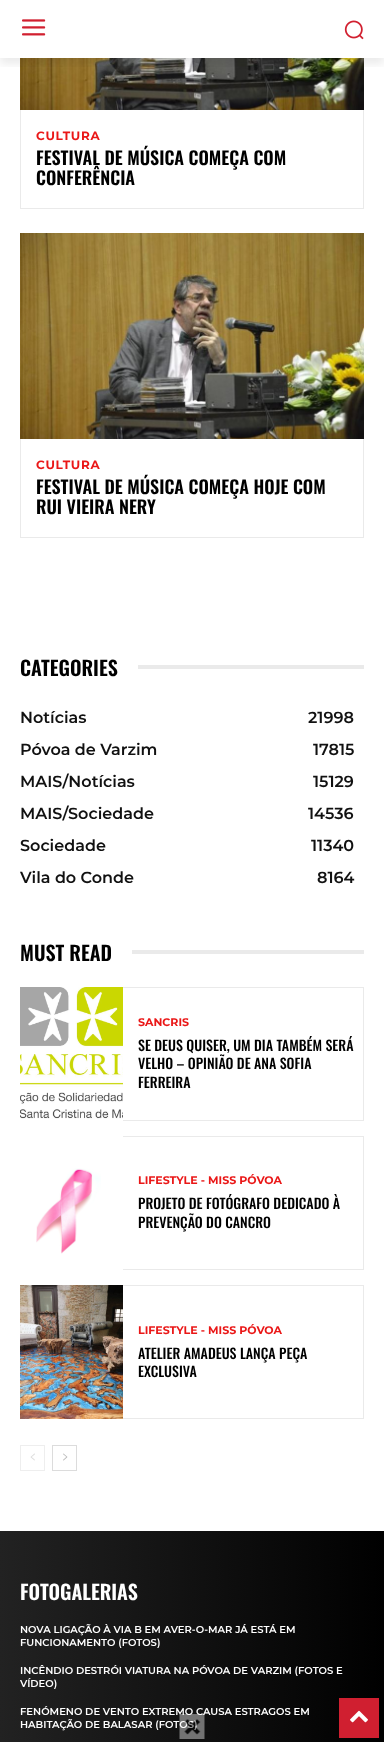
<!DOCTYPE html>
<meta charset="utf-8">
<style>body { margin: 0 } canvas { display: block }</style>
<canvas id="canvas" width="384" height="1742"></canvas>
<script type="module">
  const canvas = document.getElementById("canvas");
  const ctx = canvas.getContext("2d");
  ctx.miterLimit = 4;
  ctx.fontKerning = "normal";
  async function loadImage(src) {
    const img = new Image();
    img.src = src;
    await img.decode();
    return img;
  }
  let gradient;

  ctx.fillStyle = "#ffffff";
  ctx.fillRect(0, 0, 384, 1742);
  ctx.drawImage(await loadImage("img1.png"), 22, 19, 24, 17);
  ctx.drawImage(await loadImage("img2.png"), 344, 20, 20, 20);
  ctx.drawImage(await loadImage("img3.png"), 20, 58, 344, 52);
  ctx.save();
  ctx.beginPath();
  ctx.rect(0, 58, 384, 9);
  ctx.clip();
  ctx.fillStyle = "rgba(0, 0, 0, 0.08)";
  ctx.filter = "blur(4px)";
  ctx.beginPath();
  ctx.rect(0, 6, 384, 58);
  ctx.fill();
  ctx.filter = "none";
  ctx.restore();
  ctx.fillStyle = "#eaeaea";
  ctx.fillRect(363, 110, 1, 99);
  ctx.fillRect(20, 208, 344, 1);
  ctx.fillRect(20, 110, 1, 99);
  ctx.letterSpacing = "0.75px";
  ctx.font = "bold 12px Montserrat";
  ctx.fillStyle = "#ea1717";
  ctx.fillText("CULTURA", 36, 140);
  ctx.letterSpacing = "0px";
  ctx.font = "600 18px Oswald";
  ctx.fillStyle = "#000000";
  ctx.fillText("FESTIVAL DE MÚSICA COMEÇA COM", 36, 165);
  ctx.fillText("CONFERÊNCIA", 36, 185);
  ctx.drawImage(await loadImage("img4.png"), 20, 233, 344, 206);
  ctx.fillStyle = "#eaeaea";
  ctx.fillRect(363, 439, 1, 99);
  ctx.fillRect(20, 537, 344, 1);
  ctx.fillRect(20, 439, 1, 99);
  ctx.letterSpacing = "0.75px";
  ctx.font = "bold 12px Montserrat";
  ctx.fillStyle = "#ea1717";
  ctx.fillText("CULTURA", 36, 469);
  ctx.letterSpacing = "0px";
  ctx.font = "600 18px Oswald";
  ctx.fillStyle = "#000000";
  ctx.fillText("FESTIVAL DE MÚSICA COMEÇA HOJE COM", 36, 494);
  ctx.fillText("RUI VIEIRA NERY", 36, 514);
  ctx.font = "600 20px Oswald";
  ctx.fillText("CATEGORIES", 20, 676);
  ctx.fillStyle = "#eaeaea";
  ctx.fillRect(138, 665, 226, 4);
  ctx.font = "600 16px Montserrat";
  ctx.fillStyle = "#111111";
  ctx.fillText("Notícias", 20, 723);
  ctx.fillText("21998", 308, 723);
  ctx.fillText("Póvoa de Varzim", 20, 755);
  ctx.fillText("17815", 313, 755);
  ctx.fillText("MAIS/Notícias", 20, 787);
  ctx.fillText("15129", 313, 787);
  ctx.fillText("MAIS/Sociedade", 20, 819);
  ctx.fillText("14536", 308, 819);
  ctx.fillText("Sociedade", 20, 851);
  ctx.fillText("11340", 311, 851);
  ctx.fillText("Vila do Conde", 20, 883);
  ctx.fillText("8164", 317, 883);
  ctx.font = "600 20px Oswald";
  ctx.fillStyle = "#000000";
  ctx.fillText("MUST READ", 20, 961);
  ctx.fillStyle = "#eaeaea";
  ctx.fillRect(132, 950, 232, 4);
  ctx.drawImage(await loadImage("img5.png"), 20, 987, 103, 132);
  ctx.fillRect(123, 987, 241, 1);
  ctx.fillRect(363, 987, 1, 134);
  ctx.fillRect(123, 1120, 241, 1);
  ctx.font = "bold 11px Montserrat";
  ctx.fillStyle = "#ea1717";
  ctx.fillText("SANCRIS", 138, 1026);
  ctx.font = "500 14px Oswald";
  ctx.fillStyle = "#000000";
  ctx.fillText("SE DEUS QUISER, UM DIA TAMBÉM SERÁ", 138, 1051);
  ctx.fillText("VELHO – OPINIÃO DE ANA SOFIA", 138, 1069);
  ctx.fillText("FERREIRA", 138, 1088);
  ctx.drawImage(await loadImage("img6.png"), 36, 1168, 65, 86);
  ctx.fillStyle = "#eaeaea";
  ctx.fillRect(123, 1136, 241, 1);
  ctx.fillRect(363, 1136, 1, 134);
  ctx.fillRect(123, 1269, 241, 1);
  ctx.font = "bold 11px Montserrat";
  ctx.fillStyle = "#ea1717";
  ctx.fillText("LIFESTYLE - MISS PÓVOA", 138, 1184);
  ctx.font = "500 14px Oswald";
  ctx.fillStyle = "#000000";
  ctx.fillText("PROJETO DE FOTÓGRAFO DEDICADO À", 138, 1209);
  ctx.fillText("PREVENÇÃO DO CANCRO", 138, 1228);
  ctx.drawImage(await loadImage("img7.png"), 20, 1285, 103, 134);
  ctx.fillStyle = "#eaeaea";
  ctx.fillRect(123, 1285, 241, 1);
  ctx.fillRect(363, 1285, 1, 134);
  ctx.fillRect(123, 1418, 241, 1);
  ctx.font = "bold 11px Montserrat";
  ctx.fillStyle = "#ea1717";
  ctx.fillText("LIFESTYLE - MISS PÓVOA", 138, 1334);
  ctx.font = "500 14px Oswald";
  ctx.fillStyle = "#000000";
  ctx.fillText("ATELIER AMADEUS LANÇA PEÇA", 138, 1359);
  ctx.fillText("EXCLUSIVA", 138, 1377);
  ctx.strokeStyle = "#eeeeee";
  ctx.strokeRect(20.5, 1445.5, 24, 25);
  ctx.drawImage(await loadImage("img8.png"), 30, 1453, 5, 8);
  ctx.strokeStyle = "#dcdcdc";
  ctx.strokeRect(52.5, 1445.5, 24, 25);
  ctx.drawImage(await loadImage("img9.png"), 63, 1453, 5, 8);
  gradient = ctx.createLinearGradient(384, 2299, 0, 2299);
  gradient.addColorStop(0, "#000000");
  gradient.addColorStop(1, "#222222");
  ctx.fillStyle = gradient;
  ctx.fillRect(0, 1531, 384, 211);
  ctx.font = "600 20px Oswald";
  ctx.fillStyle = "#ffffff";
  ctx.fillText("FOTOGALERIAS", 20, 1600);
  ctx.font = "600 10px Montserrat";
  ctx.fillText("NOVA LIGAÇÃO À VIA B EM AVER-O-MAR JÁ ESTÁ EM", 20, 1633);
  ctx.fillText("FUNCIONAMENTO (FOTOS)", 20, 1646);
  ctx.fillText("INCÊNDIO DESTRÓI VIATURA NA PÓVOA DE VARZIM (FOTOS E", 20, 1674);
  ctx.fillText("VÍDEO)", 20, 1687);
  ctx.fillText("FENÓMENO DE VENTO EXTREMO CAUSA ESTRAGOS EM", 20, 1715);
  ctx.fillText("HABITAÇÃO DE BALASAR (FOTOS)", 20, 1728);
  ctx.fillStyle = "#d01f30";
  ctx.fillRect(339, 1698, 40, 40);
  ctx.drawImage(await loadImage("img10.png"), 350, 1710, 18, 13);
  ctx.drawImage(await loadImage("img11.png"), 179, 1714, 26, 25);
</script>
